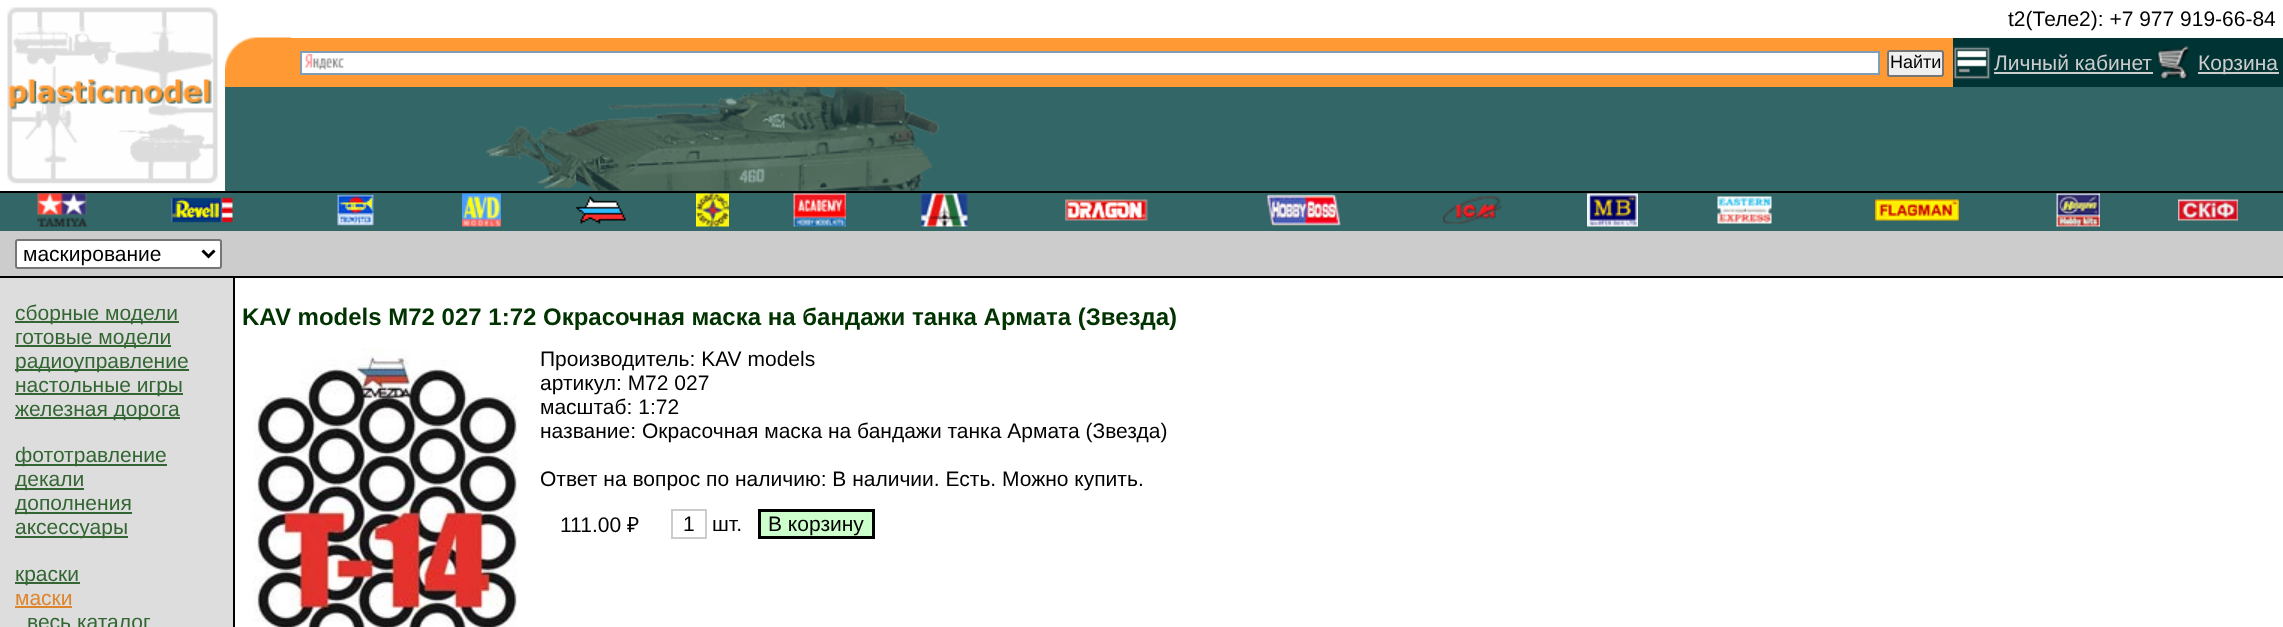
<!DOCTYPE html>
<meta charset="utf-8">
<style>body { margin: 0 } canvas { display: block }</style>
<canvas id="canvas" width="2283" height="627"></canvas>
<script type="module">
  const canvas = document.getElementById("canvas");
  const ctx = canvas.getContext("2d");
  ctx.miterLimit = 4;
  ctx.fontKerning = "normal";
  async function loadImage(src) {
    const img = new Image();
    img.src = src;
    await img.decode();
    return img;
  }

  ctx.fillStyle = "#ffffff";
  ctx.fillRect(0, 0, 2283, 627);
  ctx.drawImage(await loadImage("img1.png"), 7, 7, 211, 177);
  ctx.drawImage(await loadImage("img2.png"), 8, 79, 204, 31);
  ctx.font = "21px Liberation Sans";
  ctx.fillStyle = "#000000";
  ctx.fillText("t2(Теле2): +7 977 919-66-84", 2008, 26);
  ctx.fillStyle = "#ff9933";
  ctx.fillRect(225, 70, 66, 17);
  ctx.drawImage(await loadImage("img3.png"), 225, 37, 66, 33);
  ctx.fillStyle = "#003333";
  ctx.fillRect(1953, 38, 330, 49);
  ctx.drawImage(await loadImage("img4.png"), 1953, 46, 38, 34);
  ctx.fillStyle = "#ff9933";
  ctx.fillRect(291, 38, 1662, 49);
  ctx.fillStyle = "#ffffff";
  ctx.fillRect(302, 53, 1576, 20);
  ctx.drawImage(await loadImage("img5.png"), 304, 54, 40, 17);
  ctx.strokeStyle = "#7f9db9";
  ctx.lineWidth = 2;
  ctx.strokeRect(301, 52, 1578, 22);
  ctx.fillStyle = "#efefef";
  ctx.beginPath();
  ctx.roundRect(1888, 51, 55, 25, 2);
  ctx.fill();
  ctx.strokeStyle = "#767676";
  ctx.stroke();
  ctx.font = "18px Liberation Sans";
  ctx.fillStyle = "#000000";
  ctx.fillText("Найти", 1890, 68);
  ctx.font = "21px Liberation Sans";
  ctx.fillStyle = "#cccccc";
  ctx.fillText("Личный кабинет", 1994, 70);
  ctx.fillRect(1994, 72, 159, 2);
  ctx.drawImage(await loadImage("img6.png"), 2157, 46, 32, 34);
  ctx.fillRect(2198, 72, 81, 2);
  ctx.fillText("Корзина", 2198, 70);
  ctx.fillStyle = "#336666";
  ctx.fillRect(225, 87, 2058, 104);
  ctx.drawImage(await loadImage("img7.png"), 486, 87, 454, 104);
  ctx.fillRect(0, 193, 2283, 38);
  ctx.fillStyle = "#000000";
  ctx.fillRect(0, 191, 2283, 2);
  ctx.drawImage(await loadImage("img8.png"), 37, 193, 50, 34);
  ctx.drawImage(await loadImage("img9.png"), 171, 197, 62, 26);
  ctx.drawImage(await loadImage("img10.png"), 337, 194, 37, 32);
  ctx.drawImage(await loadImage("img11.png"), 462, 193, 39, 34);
  ctx.drawImage(await loadImage("img12.png"), 575, 196, 51, 28);
  ctx.drawImage(await loadImage("img13.png"), 696, 193, 33, 34);
  ctx.drawImage(await loadImage("img14.png"), 793, 193, 53, 34);
  ctx.drawImage(await loadImage("img15.png"), 921, 193, 47, 34);
  ctx.drawImage(await loadImage("img16.png"), 1065, 199, 83, 22);
  ctx.drawImage(await loadImage("img17.png"), 1266, 194, 75, 32);
  ctx.drawImage(await loadImage("img18.png"), 1443, 196, 59, 28);
  ctx.drawImage(await loadImage("img19.png"), 1587, 193, 51, 34);
  ctx.drawImage(await loadImage("img20.png"), 1717, 196, 55, 28);
  ctx.drawImage(await loadImage("img21.png"), 1875, 199, 84, 22);
  ctx.drawImage(await loadImage("img22.png"), 2056, 193, 44, 34);
  ctx.drawImage(await loadImage("img23.png"), 2178, 199, 60, 22);
  ctx.fillStyle = "#cccccc";
  ctx.fillRect(0, 231, 2283, 45);
  ctx.fillStyle = "#000000";
  ctx.fillRect(0, 276, 2283, 2);
  ctx.fillStyle = "#ffffff";
  ctx.beginPath();
  ctx.roundRect(16, 240, 205, 28, 2);
  ctx.fill();
  ctx.stroke();
  ctx.beginPath();
  ctx.moveTo(202.5, 250.5);
  ctx.lineTo(208.5, 256.5);
  ctx.lineTo(214.5, 250.5);
  ctx.strokeStyle = "#000000";
  ctx.lineWidth = 3;
  ctx.stroke();
  ctx.fillStyle = "#000000";
  ctx.fillText("маскирование", 23, 261);
  ctx.fillStyle = "#dddddd";
  ctx.fillRect(0, 278, 233, 349);
  ctx.fillStyle = "#000000";
  ctx.fillRect(233, 278, 2, 349);
  ctx.fillStyle = "#336633";
  ctx.fillRect(15, 321, 164, 2);
  ctx.fillText("сборные модели", 15, 320);
  ctx.fillRect(15, 345, 156, 2);
  ctx.fillText("готовые модели", 15, 344);
  ctx.fillRect(15, 369, 174, 2);
  ctx.fillText("радиоуправление", 15, 368);
  ctx.fillRect(15, 393, 168, 2);
  ctx.fillText("настольные игры", 15, 392);
  ctx.fillRect(15, 417, 165, 2);
  ctx.fillText("железная дорога", 15, 416);
  ctx.fillRect(15, 464, 152, 2);
  ctx.fillText("фототравление", 15, 462);
  ctx.fillRect(15, 488, 69, 2);
  ctx.fillText("декали", 15, 486);
  ctx.fillRect(15, 512, 117, 2);
  ctx.fillText("дополнения", 15, 510);
  ctx.fillRect(15, 536, 113, 2);
  ctx.fillText("аксессуары", 15, 534);
  ctx.fillRect(15, 582, 65, 2);
  ctx.fillText("краски", 15, 581);
  ctx.fillStyle = "#de852c";
  ctx.fillText("маски", 15, 605);
  ctx.fillRect(15, 606, 57, 2);
  ctx.fillStyle = "#336633";
  ctx.fillText("весь каталог", 27, 629);
  ctx.font = "bold 24px Liberation Sans";
  ctx.fillStyle = "#003300";
  ctx.fillText("KAV models M72 027 1:72 Окрасочная маска на бандажи танка Армата (Звезда)", 242, 325);
  ctx.drawImage(await loadImage("img24.png"), 253, 348, 264, 279);
  ctx.font = "21px Liberation Sans";
  ctx.fillStyle = "#000000";
  ctx.fillText("Производитель: KAV models", 540, 366);
  ctx.fillText("артикул: M72 027", 540, 390);
  ctx.fillText("масштаб: 1:72", 540, 414);
  ctx.fillText("название: Окрасочная маска на бандажи танка Армата (Звезда)", 540, 438);
  ctx.fillText("Ответ на вопрос по наличию: В наличии. Есть. Можно купить.", 540, 486);
  ctx.fillText("111.00", 560, 532);
  ctx.font = "21px Noto Sans";
  ctx.fillText("₽", 627, 532);
  ctx.strokeStyle = "#cccccc";
  ctx.lineWidth = 2;
  ctx.strokeRect(672, 510, 34, 28);
  ctx.font = "21px Liberation Sans";
  ctx.fillText("1", 683, 531);
  ctx.fillText("шт.", 712, 531);
  ctx.fillStyle = "#ccffcc";
  ctx.beginPath();
  ctx.rect(759.5, 510.5, 114, 27);
  ctx.fill();
  ctx.strokeStyle = "#000000";
  ctx.lineWidth = 3;
  ctx.stroke();
  ctx.fillStyle = "#000000";
  ctx.fillText("В корзину", 768, 531);
</script>
